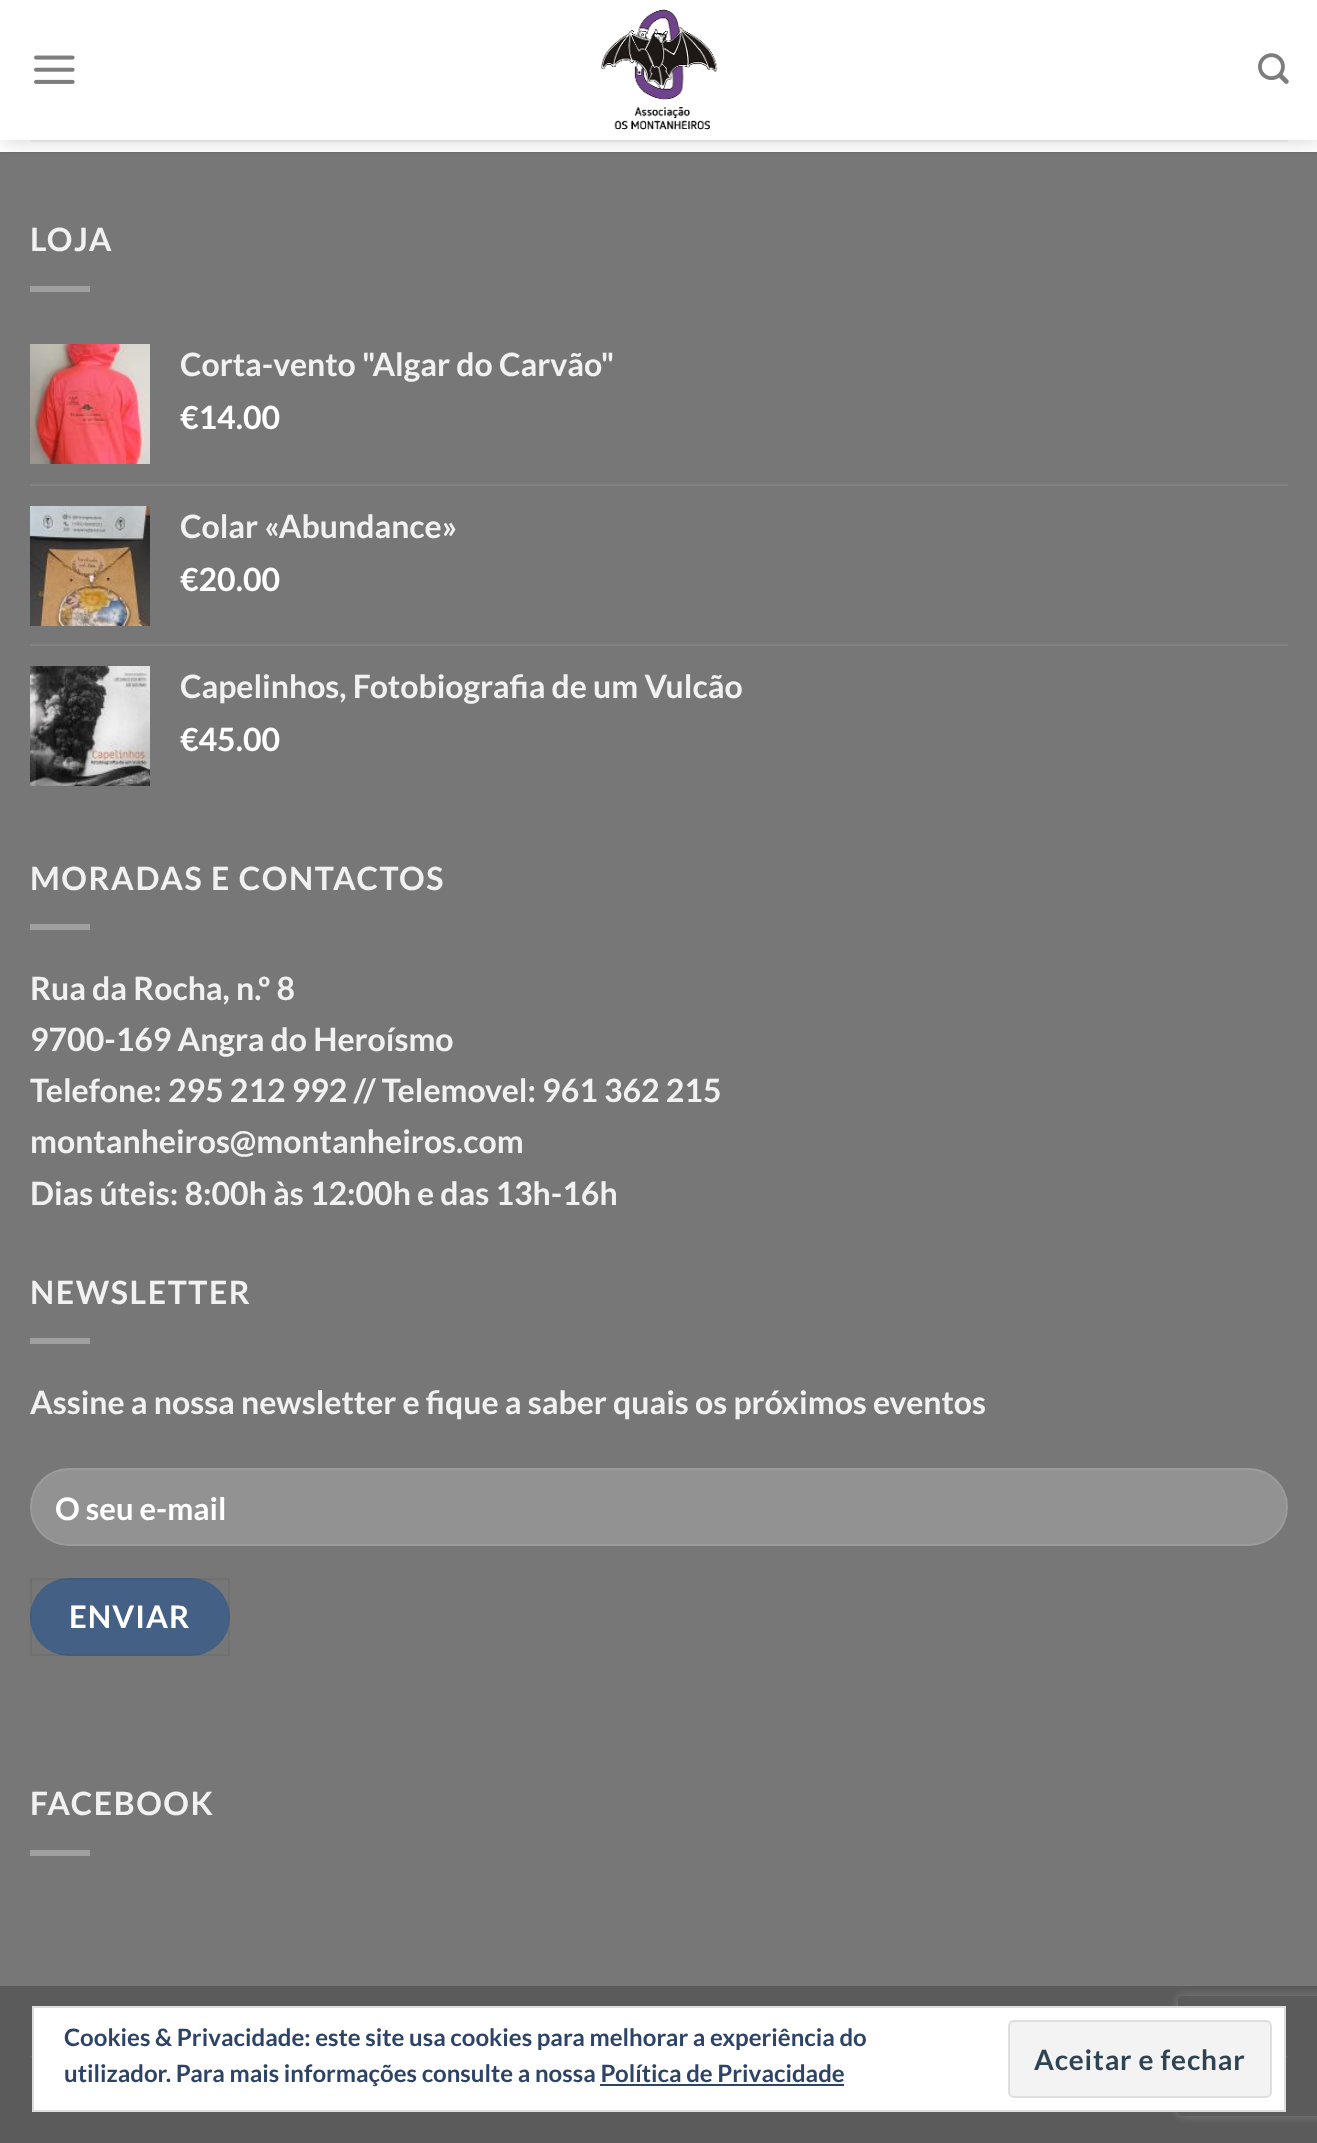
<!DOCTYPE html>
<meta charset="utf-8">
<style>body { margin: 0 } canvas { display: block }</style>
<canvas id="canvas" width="1317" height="2143"></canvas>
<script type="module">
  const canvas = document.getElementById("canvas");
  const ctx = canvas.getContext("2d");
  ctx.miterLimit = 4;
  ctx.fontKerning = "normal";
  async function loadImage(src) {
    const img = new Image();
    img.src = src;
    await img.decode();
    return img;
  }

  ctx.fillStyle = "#ffffff";
  ctx.fillRect(0, 0, 1317, 2143);
  ctx.fillStyle = "#777777";
  ctx.fillRect(0, 154, 1317, 1832);
  ctx.fillStyle = "#717171";
  ctx.fillRect(0, 152, 1317, 2);
  ctx.save();
  ctx.beginPath();
  ctx.rect(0, 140, 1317, 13);
  ctx.clip();
  ctx.fillStyle = "rgba(0, 0, 0, 0.15)";
  ctx.filter = "blur(10px)";
  ctx.beginPath();
  ctx.rect(2, 2, 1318, 140);
  ctx.fill();
  ctx.filter = "none";
  ctx.restore();
  ctx.drawImage(await loadImage("img1.png"), 34, 55, 41, 29);
  ctx.drawImage(await loadImage("img2.png"), 601, 9, 117, 121);
  ctx.drawImage(await loadImage("img3.png"), 1258, 53, 31, 31);
  ctx.fillStyle = "#dfdfdf";
  ctx.fillRect(30, 140, 1258, 2);
  ctx.letterSpacing = "1.6px";
  ctx.font = "bold 32px Lato";
  ctx.fillStyle = "#f1f1f1";
  ctx.fillText("LOJA", 30, 251);
  ctx.fillStyle = "#a0a0a0";
  ctx.fillRect(30, 286, 60, 6);
  ctx.drawImage(await loadImage("img4.png"), 30, 344, 120, 120);
  ctx.letterSpacing = "0px";
  ctx.fillStyle = "#f1f1f1";
  ctx.fillText("Corta-vento \"Algar do Carvão\"", 180, 376);
  ctx.fillStyle = "#ffffff";
  ctx.fillText("€14.00", 180, 429);
  ctx.fillStyle = "#828282";
  ctx.fillRect(30, 484, 1258, 2);
  ctx.drawImage(await loadImage("img5.png"), 30, 506, 120, 120);
  ctx.fillStyle = "#f1f1f1";
  ctx.fillText("Colar «Abundance»", 180, 538);
  ctx.fillStyle = "#ffffff";
  ctx.fillText("€20.00", 180, 591);
  ctx.fillStyle = "#828282";
  ctx.fillRect(30, 644, 1258, 2);
  ctx.drawImage(await loadImage("img6.png"), 30, 666, 120, 120);
  ctx.fillStyle = "#f1f1f1";
  ctx.fillText("Capelinhos, Fotobiografia de um Vulcão", 180, 698);
  ctx.fillStyle = "#ffffff";
  ctx.fillText("€45.00", 180, 751);
  ctx.letterSpacing = "1.6px";
  ctx.fillStyle = "#f1f1f1";
  ctx.fillText("MORADAS E CONTACTOS", 30, 890);
  ctx.fillStyle = "#a0a0a0";
  ctx.fillRect(30, 924, 60, 6);
  ctx.letterSpacing = "0px";
  ctx.fillStyle = "#f1f1f1";
  ctx.fillText("Rua da Rocha, n.º 8", 30, 1000);
  ctx.fillText("9700-169 Angra do Heroísmo", 30, 1051);
  ctx.fillText("Telefone: 295 212 992 // Telemovel: 961 362 215", 30, 1102);
  ctx.fillText("montanheiros@montanheiros.com", 30, 1153);
  ctx.fillText("Dias úteis: 8:00h às 12:00h e das 13h-16h", 30, 1205);
  ctx.letterSpacing = "1.6px";
  ctx.fillText("NEWSLETTER", 30, 1304);
  ctx.fillStyle = "#a0a0a0";
  ctx.fillRect(30, 1338, 60, 6);
  ctx.letterSpacing = "0px";
  ctx.fillStyle = "#f1f1f1";
  ctx.fillText("Assine a nossa newsletter e fique a saber quais os próximos eventos", 30, 1414);
  ctx.fillStyle = "#929292";
  ctx.beginPath();
  ctx.roundRect(30, 1468, 1258, 78, 39);
  ctx.fill();
  ctx.beginPath();
  ctx.roundRect(31, 1469, 1256, 76, 38);
  ctx.strokeStyle = "rgba(255, 255, 255, 0.09)";
  ctx.lineWidth = 2;
  ctx.stroke();
  ctx.font = "bold 31px Lato";
  ctx.fillStyle = "#ffffff";
  ctx.fillText("O seu e-mail", 55, 1520);
  ctx.fillStyle = "#446084";
  ctx.beginPath();
  ctx.roundRect(30, 1578, 200, 78, 39);
  ctx.fill();
  ctx.strokeStyle = "rgba(0, 0, 0, 0.05)";
  ctx.strokeRect(31, 1579, 198, 76);
  ctx.letterSpacing = "1px";
  ctx.fillStyle = "#ffffff";
  ctx.fillText("ENVIAR", 69, 1628);
  ctx.letterSpacing = "1.6px";
  ctx.font = "bold 32px Lato";
  ctx.fillStyle = "#f1f1f1";
  ctx.fillText("FACEBOOK", 30, 1815);
  ctx.fillStyle = "#a0a0a0";
  ctx.fillRect(30, 1850, 60, 6);
  ctx.fillStyle = "#5b5b5b";
  ctx.fillRect(0, 1986, 1317, 157);
  ctx.fillStyle = "#656565";
  ctx.fillRect(30, 2056, 1258, 2);
  ctx.save();
  ctx.beginPath();
  ctx.moveTo(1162, 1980);
  ctx.lineTo(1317, 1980);
  ctx.lineTo(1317, 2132);
  ctx.lineTo(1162, 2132);
  ctx.closePath();
  ctx.moveTo(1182, 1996);
  ctx.lineTo(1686, 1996);
  ctx.bezierCurveTo(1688, 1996, 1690, 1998, 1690, 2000);
  ctx.lineTo(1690, 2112);
  ctx.bezierCurveTo(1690, 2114, 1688, 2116, 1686, 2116);
  ctx.lineTo(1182, 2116);
  ctx.bezierCurveTo(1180, 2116, 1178, 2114, 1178, 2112);
  ctx.lineTo(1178, 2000);
  ctx.bezierCurveTo(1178, 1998, 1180, 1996, 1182, 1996);
  ctx.closePath();
  ctx.clip("evenodd");
  ctx.fillStyle = "#808080";
  ctx.filter = "blur(5px)";
  ctx.beginPath();
  ctx.roundRect(1178, 1996, 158, 120, 4);
  ctx.fill();
  ctx.filter = "none";
  ctx.restore();
  ctx.fillStyle = "#ffffff";
  ctx.beginPath();
  ctx.rect(33, 2007, 1252, 104);
  ctx.fill();
  ctx.strokeStyle = "#dedede";
  ctx.stroke();
  ctx.letterSpacing = "0px";
  ctx.font = "bold 24px Lato";
  ctx.fillStyle = "#2e4467";
  ctx.fillText("Cookies & Privacidade: este site usa cookies para melhorar a experiência do", 64, 2046);
  ctx.fillStyle = "#f3f3f3";
  ctx.beginPath();
  ctx.roundRect(1009, 2021, 262, 76, 5);
  ctx.fill();
  ctx.stroke();
  ctx.letterSpacing = "0.8px";
  ctx.font = "bold 28px Lato";
  ctx.fillStyle = "#2e4453";
  ctx.fillText("Aceitar e fechar", 1034, 2070);
  ctx.letterSpacing = "0px";
  ctx.font = "bold 24px Lato";
  ctx.fillStyle = "#2e4467";
  ctx.fillText("utilizador. Para mais informações consulte a nossa Política de Privacidade", 64, 2082);
  ctx.fillRect(600, 2084, 244, 2);
</script>
